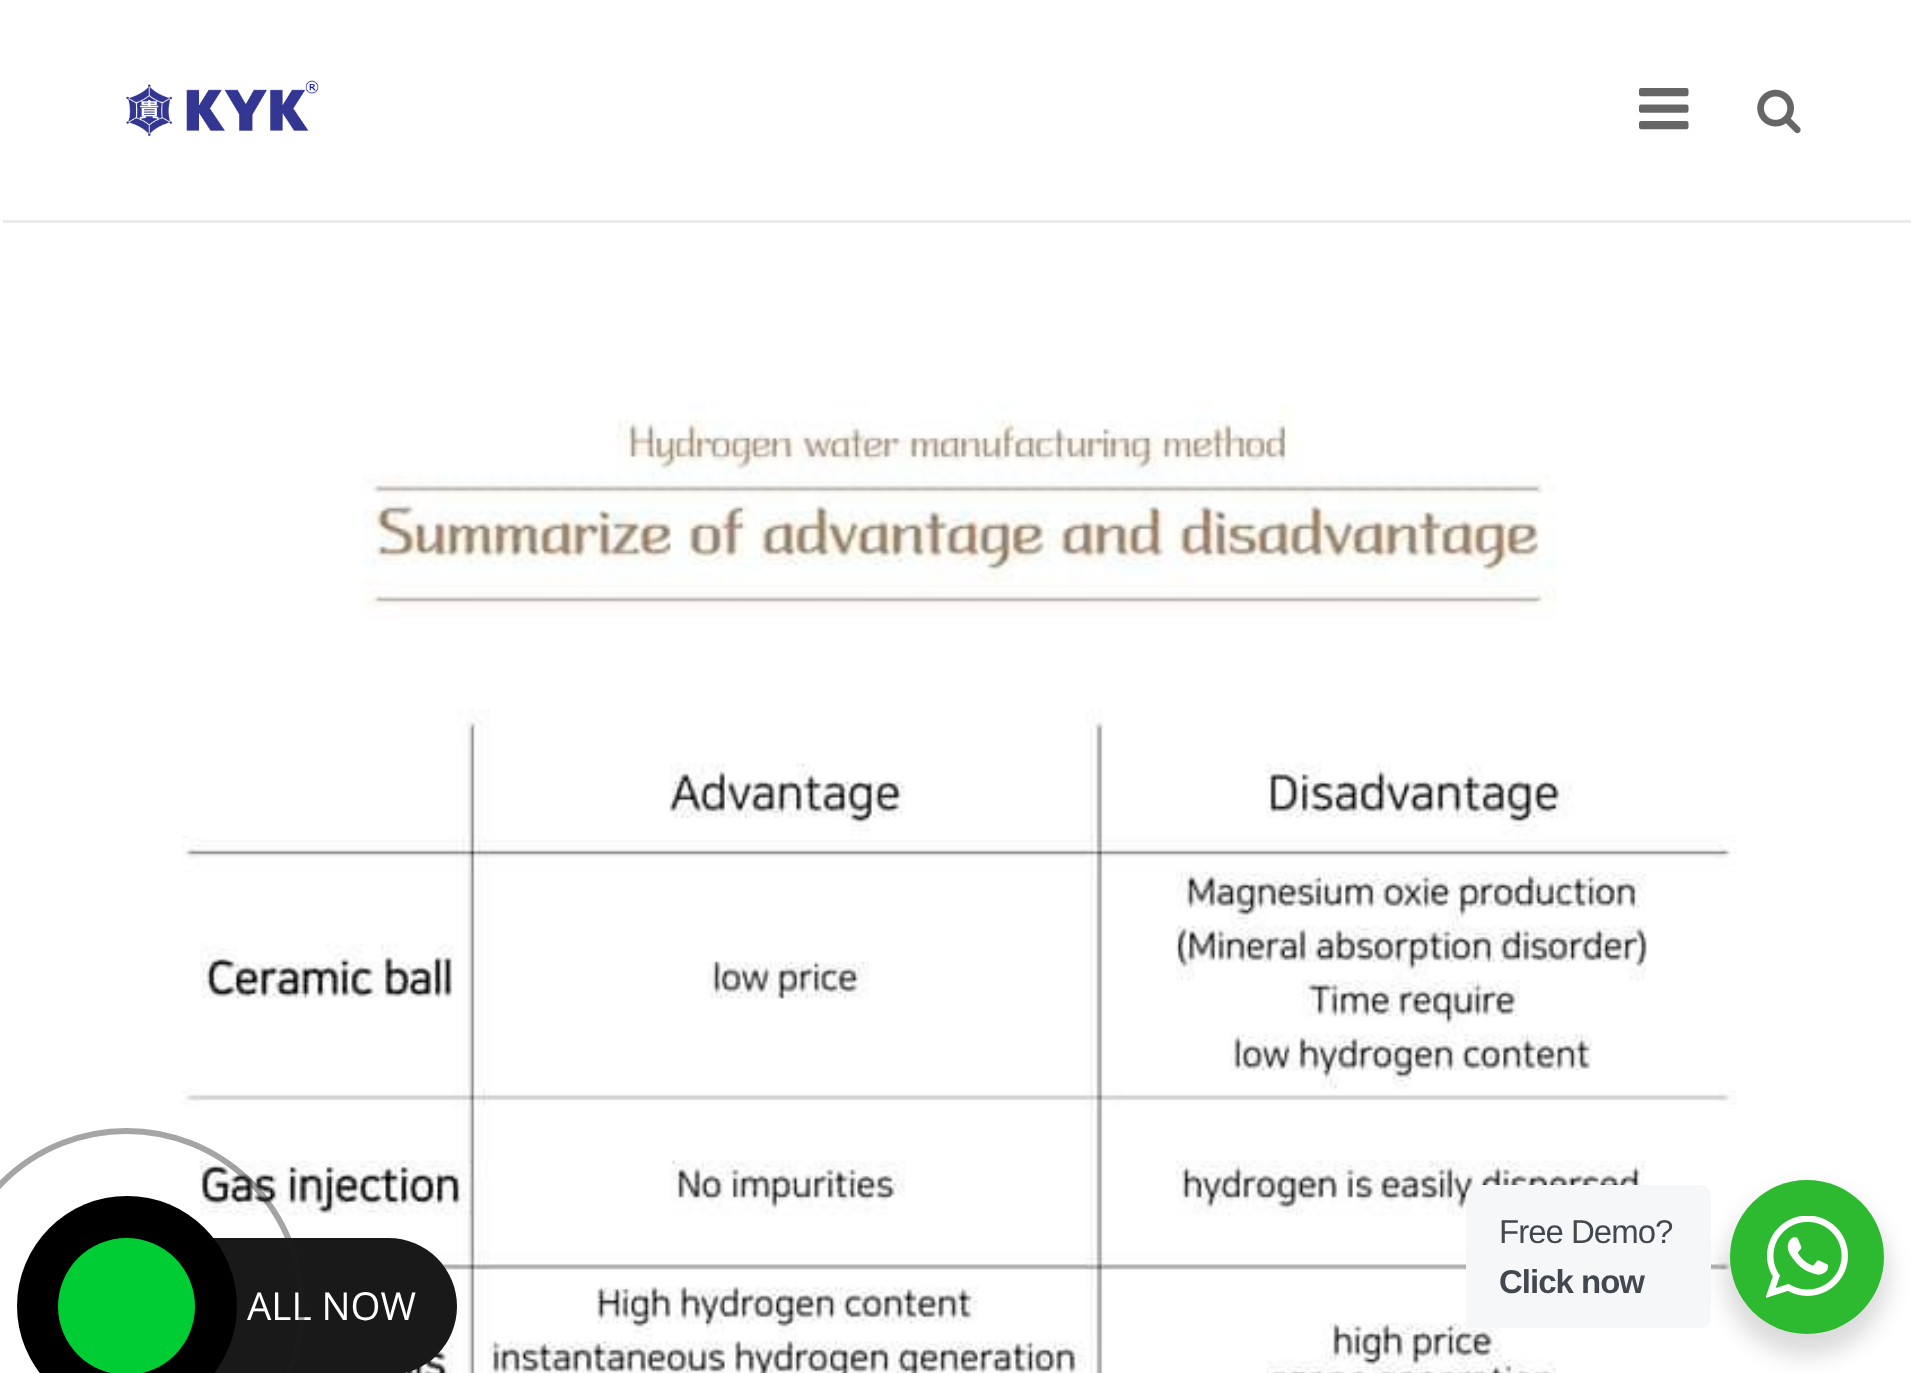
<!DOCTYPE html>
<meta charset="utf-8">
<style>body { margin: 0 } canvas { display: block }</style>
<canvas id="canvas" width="1913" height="1373"></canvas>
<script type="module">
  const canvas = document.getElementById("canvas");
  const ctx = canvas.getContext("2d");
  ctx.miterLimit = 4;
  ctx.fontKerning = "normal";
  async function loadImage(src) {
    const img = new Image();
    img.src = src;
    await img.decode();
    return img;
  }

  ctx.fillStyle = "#ffffff";
  ctx.fillRect(0, 0, 1913, 1373);
  ctx.fillStyle = "#ebebeb";
  ctx.fillRect(3, 220, 1908, 3);
  ctx.drawImage(await loadImage("img1.png"), 126, 80, 193, 57);
  ctx.drawImage(await loadImage("img2.png"), 1639, 88, 50, 42);
  ctx.drawImage(await loadImage("img3.png"), 1757, 89, 44, 45);
  ctx.drawImage(await loadImage("img4.png"), 110, 330, 1694, 1043);
  ctx.fillStyle = "rgba(0, 0, 0, 0.14)";
  ctx.filter = "blur(11px)";
  ctx.beginPath();
  ctx.roundRect(1724, 1191, 165, 165, 82.5);
  ctx.fill();
  ctx.filter = "none";
  ctx.fillStyle = "#f5f7f9";
  ctx.beginPath();
  ctx.roundRect(1466, 1185, 245, 143, 11);
  ctx.fill();
  ctx.letterSpacing = "-1px";
  ctx.font = "33px Liberation Sans";
  ctx.fillStyle = "#43474e";
  ctx.fillText("Free Demo?", 1499, 1243);
  ctx.font = "bold 33px Liberation Sans";
  ctx.fillText("Click now", 1499, 1293);
  ctx.fillStyle = "#2eba30";
  ctx.beginPath();
  ctx.arc(1807, 1257, 77, 0, Math.PI * 2);
  ctx.fill();
  ctx.drawImage(await loadImage("img5.png"), 1766, 1216, 82, 82);
  ctx.fillStyle = "#1a1919";
  ctx.beginPath();
  ctx.roundRect(58, 1238, 399, 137, 68.5);
  ctx.fill();
  ctx.letterSpacing = "0px";
  ctx.font = "38.5px Open Sans";
  ctx.fillStyle = "#ffffff";
  ctx.fillText("ALL NOW", 247, 1320);
  ctx.beginPath();
  ctx.arc(126.5, 1306.5, 175.5, 0, Math.PI * 2);
  ctx.strokeStyle = "rgba(30, 30, 30, 0.4)";
  ctx.lineWidth = 6;
  ctx.stroke();
  ctx.fillStyle = "#000000";
  ctx.beginPath();
  ctx.arc(127, 1306, 110, 0, Math.PI * 2);
  ctx.fill();
  ctx.fillStyle = "#00cc33";
  ctx.beginPath();
  ctx.arc(126.5, 1306.5, 68.5, 0, Math.PI * 2);
  ctx.fill();
</script>
